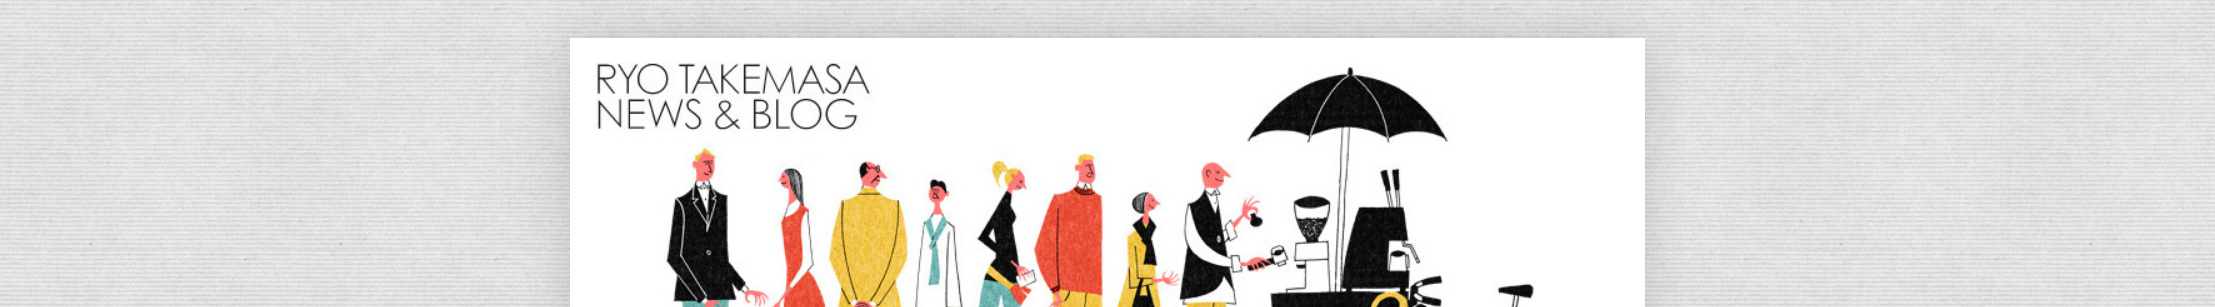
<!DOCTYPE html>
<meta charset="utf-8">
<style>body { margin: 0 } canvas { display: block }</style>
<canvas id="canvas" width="2215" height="307"></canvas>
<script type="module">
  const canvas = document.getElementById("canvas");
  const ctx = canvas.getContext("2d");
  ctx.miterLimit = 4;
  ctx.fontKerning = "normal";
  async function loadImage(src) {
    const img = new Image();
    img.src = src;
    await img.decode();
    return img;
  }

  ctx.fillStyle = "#ffffff";
  ctx.fillRect(0, 0, 2215, 307);
  ctx.drawImage(await loadImage("img1.png"), 0, 0, 2215, 307);
  ctx.fillStyle = "rgba(0, 0, 0, 0.15)";
  ctx.filter = "blur(25px)";
  ctx.beginPath();
  ctx.rect(570, 38, 1075, 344);
  ctx.fill();
  ctx.filter = "none";
  ctx.fillStyle = "#ffffff";
  ctx.fillRect(570, 38, 1075, 269);
  ctx.drawImage(await loadImage("img2.png"), 593, 60, 943, 247);
</script>
